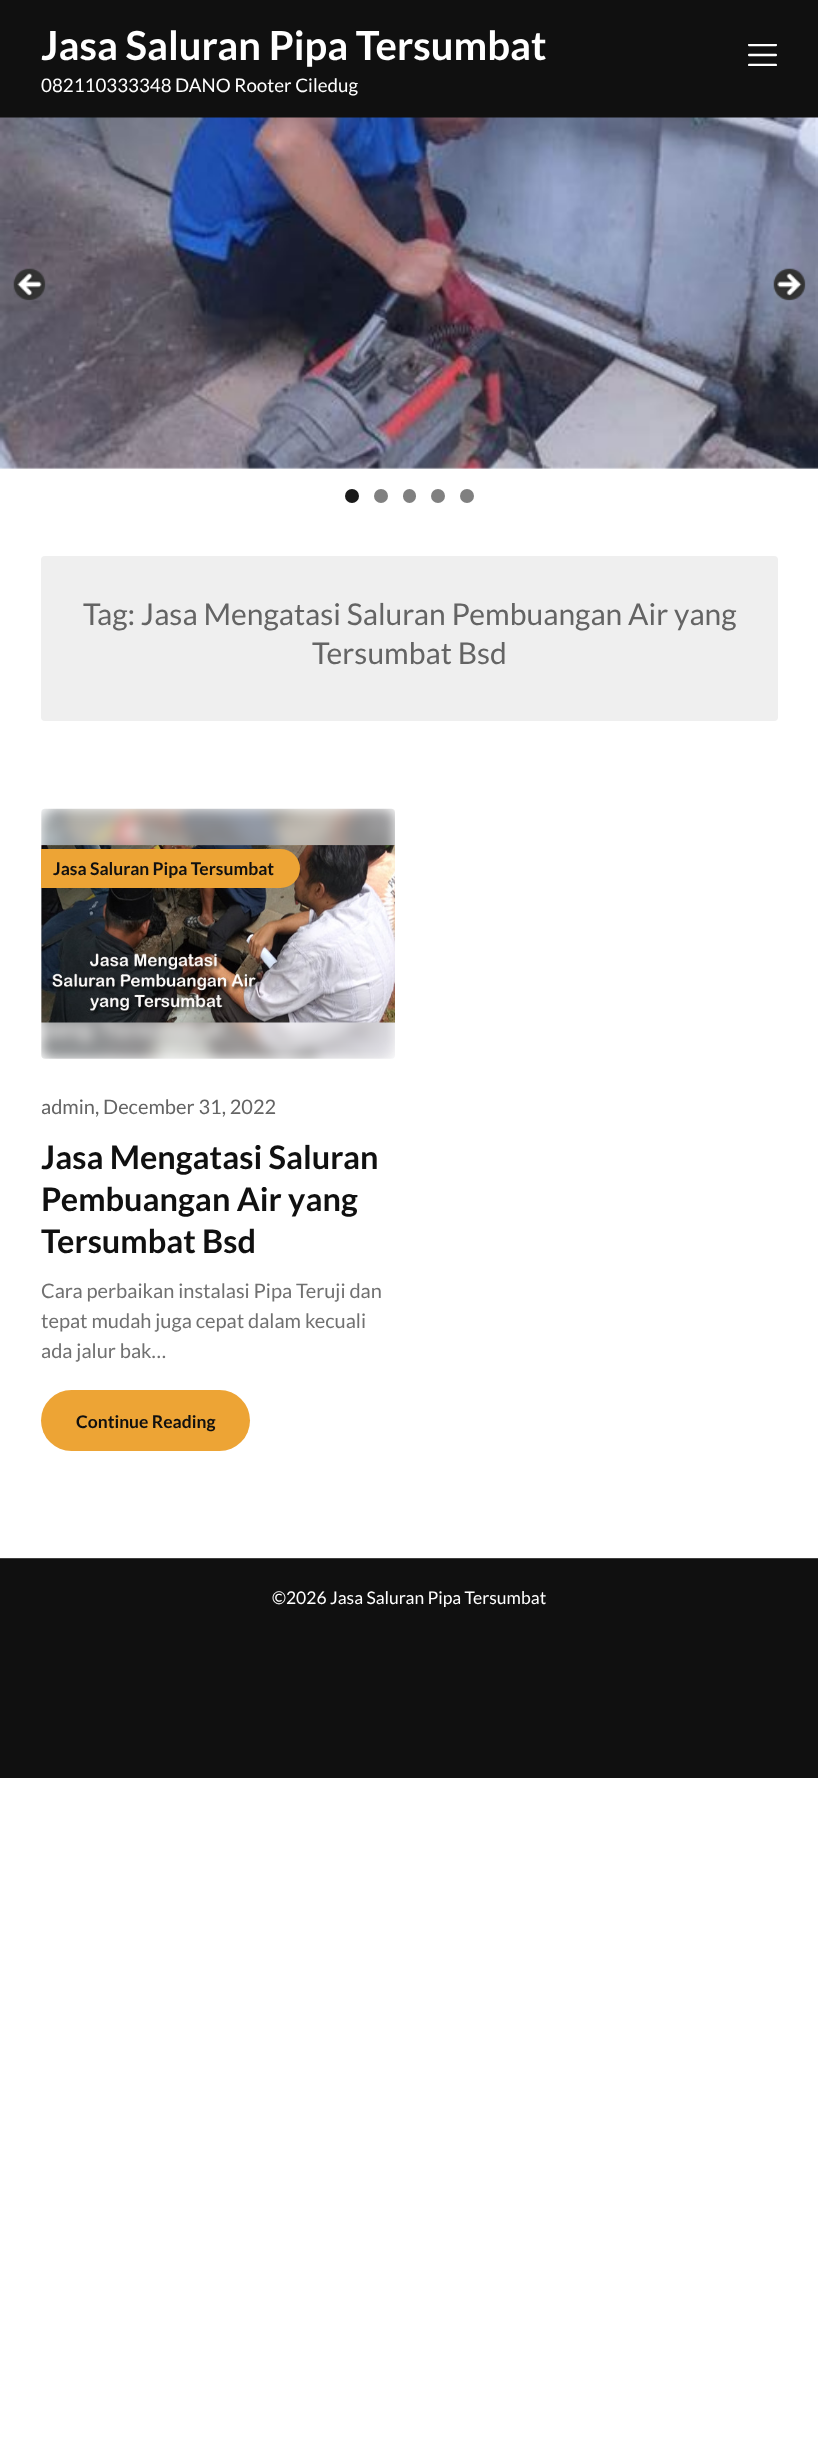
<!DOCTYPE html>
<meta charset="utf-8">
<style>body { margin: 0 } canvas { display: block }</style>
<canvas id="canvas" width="818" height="2458"></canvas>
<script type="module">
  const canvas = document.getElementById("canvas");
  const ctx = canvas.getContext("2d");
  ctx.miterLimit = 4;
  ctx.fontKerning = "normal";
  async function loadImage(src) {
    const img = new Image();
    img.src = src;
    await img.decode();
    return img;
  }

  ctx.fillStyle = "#ffffff";
  ctx.fillRect(0, 0, 818, 2458);
  ctx.fillStyle = "#101010";
  ctx.fillRect(0, 0, 818, 118);
  ctx.font = "bold 40px Lato";
  ctx.fillStyle = "#ffffff";
  ctx.fillText("Jasa Saluran Pipa Tersumbat", 41, 60);
  ctx.font = "18.75px Lato";
  ctx.fillText("082110333348 DANO Rooter Ciledug", 41, 92);
  ctx.drawImage(await loadImage("img1.png"), 748, 44, 29, 22);
  ctx.drawImage(await loadImage("img2.png"), 0, 117, 818, 352);
  ctx.drawImage(await loadImage("img3.png"), 13, 268, 33, 33);
  ctx.drawImage(await loadImage("img4.png"), 773, 268, 33, 33);
  ctx.fillStyle = "#1a1a1a";
  ctx.beginPath();
  ctx.arc(352, 496, 7, 0, Math.PI * 2);
  ctx.fill();
  ctx.fillStyle = "#808080";
  ctx.beginPath();
  ctx.arc(381, 496, 7, 0, Math.PI * 2);
  ctx.fill();
  ctx.beginPath();
  ctx.roundRect(403, 489, 13, 14, 6.5);
  ctx.fill();
  ctx.beginPath();
  ctx.arc(438, 496, 7, 0, Math.PI * 2);
  ctx.fill();
  ctx.beginPath();
  ctx.arc(467, 496, 7, 0, Math.PI * 2);
  ctx.fill();
  ctx.fillStyle = "#efefef";
  ctx.beginPath();
  ctx.roundRect(41, 556, 737, 165, 4);
  ctx.fill();
  ctx.font = "30px Lato";
  ctx.fillStyle = "#646464";
  ctx.fillText("Tag: Jasa Mengatasi Saluran Pembuangan Air yang", 83, 625);
  ctx.fillText("Tersumbat Bsd", 312, 664);
  ctx.drawImage(await loadImage("img5.png"), 41, 808, 354, 251);
  ctx.drawImage(await loadImage("img6.png"), 41, 845, 354, 178);
  ctx.fillStyle = "#eda435";
  ctx.beginPath();
  ctx.roundRect(41, 849, 259, 39, [0, 19.5, 19.5, 0]);
  ctx.fill();
  ctx.font = "bold 17.5px Lato";
  ctx.fillStyle = "#101010";
  ctx.fillText("Jasa Saluran Pipa Tersumbat", 53, 875);
  ctx.font = "20px Lato";
  ctx.fillStyle = "#646464";
  ctx.fillText("admin, December 31, 2022", 41, 1114);
  ctx.font = "bold 32.5px Lato";
  ctx.fillStyle = "#101010";
  ctx.fillText("Jasa Mengatasi Saluran", 41, 1169);
  ctx.fillText("Pembuangan Air yang", 41, 1211);
  ctx.fillText("Tersumbat Bsd", 41, 1253);
  ctx.font = "20px Lato";
  ctx.fillStyle = "#717171";
  ctx.fillText("Cara perbaikan instalasi Pipa Teruji dan", 41, 1298);
  ctx.fillText("tepat mudah juga cepat dalam kecuali", 41, 1328);
  ctx.fillText("ada jalur bak…", 41, 1358);
  ctx.fillStyle = "#eda435";
  ctx.beginPath();
  ctx.roundRect(41, 1390, 209, 61, 30.5);
  ctx.fill();
  ctx.font = "bold 17.5px Lato";
  ctx.fillStyle = "#101010";
  ctx.fillText("Continue Reading", 76, 1428);
  ctx.fillRect(0, 1559, 818, 219);
  ctx.fillStyle = "#404040";
  ctx.fillRect(0, 1558, 818, 1);
  ctx.font = "17.5px Lato";
  ctx.fillStyle = "#ffffff";
  ctx.fillText("©2026 Jasa Saluran Pipa Tersumbat", 272, 1604);
</script>
